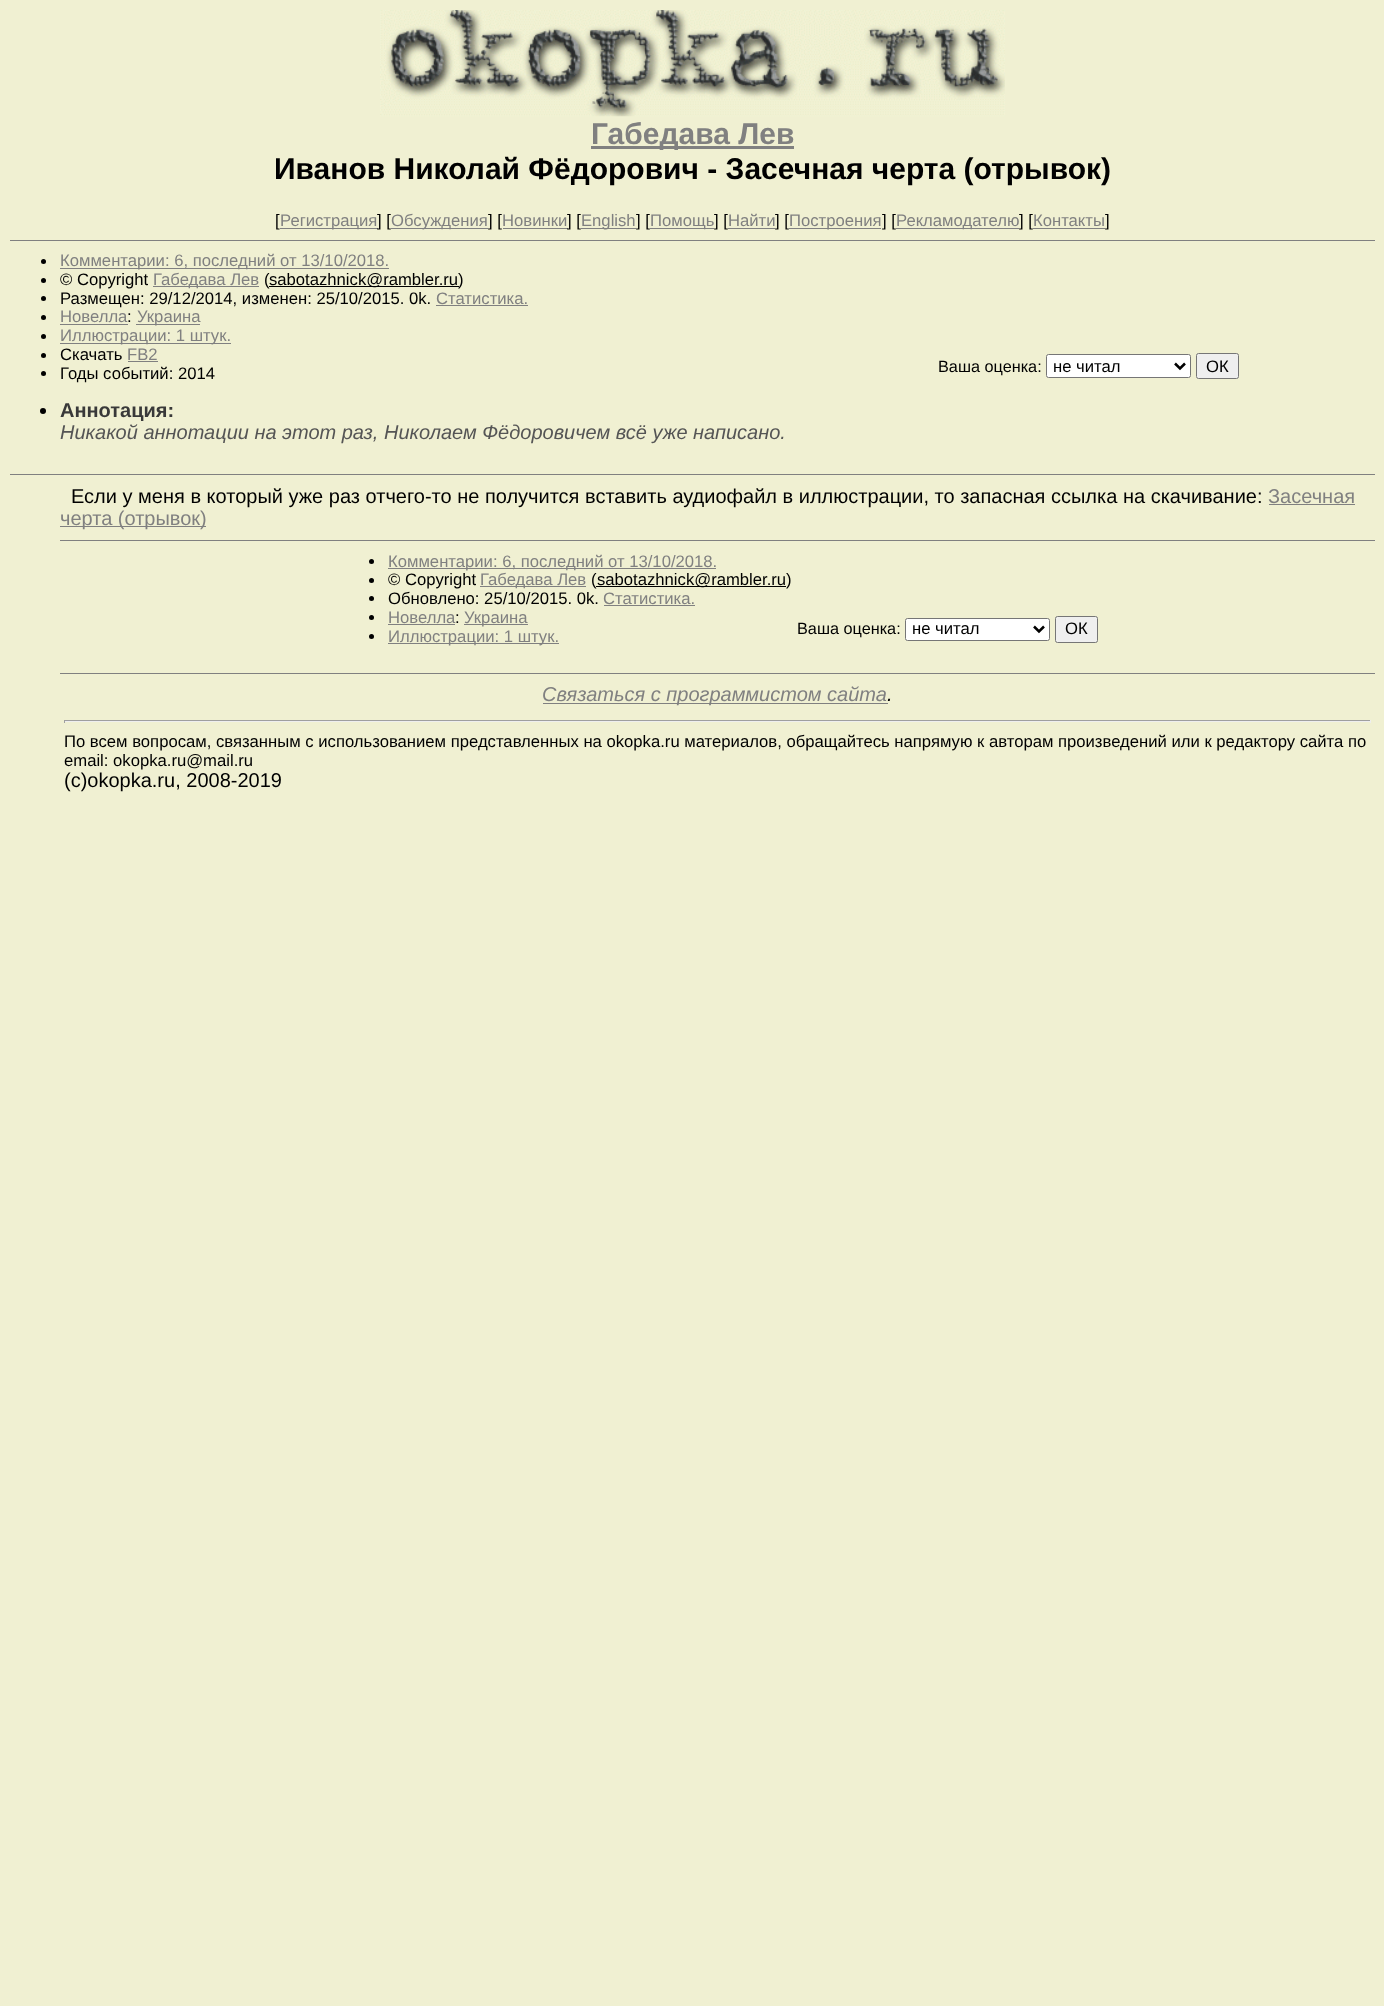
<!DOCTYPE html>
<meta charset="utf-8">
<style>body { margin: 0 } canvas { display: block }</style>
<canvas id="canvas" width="1384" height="2006"></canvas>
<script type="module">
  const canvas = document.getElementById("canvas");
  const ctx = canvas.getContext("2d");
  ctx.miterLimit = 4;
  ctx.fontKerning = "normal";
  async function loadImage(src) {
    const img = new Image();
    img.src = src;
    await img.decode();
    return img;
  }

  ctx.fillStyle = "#f0f0d2";
  ctx.fillRect(0, 0, 1384, 2006);
  ctx.drawImage(await loadImage("img1.png"), 380, 10, 625, 107);
  ctx.fillStyle = "#808080";
  ctx.fillRect(591, 146, 203, 3);
  ctx.font = "bold 30px Liberation Sans";
  ctx.fillText("Габедава Лев", 591, 144);
  ctx.fillStyle = "#000000";
  ctx.fillText("Иванов Николай Фёдорович - Засечная черта (отрывок)", 274, 179);
  ctx.font = "16.67px Liberation Sans";
  ctx.fillText("[", 275, 226);
  ctx.fillStyle = "#808080";
  ctx.fillRect(280, 228, 98, 1);
  ctx.fillText("Регистрация", 280, 226);
  ctx.fillStyle = "#000000";
  ctx.fillText("] [", 377, 226);
  ctx.fillStyle = "#808080";
  ctx.fillRect(391, 228, 97, 1);
  ctx.fillText("Обсуждения", 391, 226);
  ctx.fillStyle = "#000000";
  ctx.fillText("] [", 488, 226);
  ctx.fillStyle = "#808080";
  ctx.fillText("Новинки", 502, 226);
  ctx.fillRect(503, 228, 65, 1);
  ctx.fillStyle = "#000000";
  ctx.fillText("] [", 567, 226);
  ctx.fillStyle = "#808080";
  ctx.fillRect(581, 228, 55, 1);
  ctx.fillText("English", 581, 226);
  ctx.fillStyle = "#000000";
  ctx.fillText("] [", 636, 226);
  ctx.fillStyle = "#808080";
  ctx.fillRect(650, 228, 64, 1);
  ctx.fillText("Помощь", 650, 226);
  ctx.fillStyle = "#000000";
  ctx.fillText("] [", 714, 226);
  ctx.fillStyle = "#808080";
  ctx.fillRect(728, 228, 47, 1);
  ctx.fillText("Найти", 728, 226);
  ctx.fillStyle = "#000000";
  ctx.fillText("] [", 775, 226);
  ctx.fillStyle = "#808080";
  ctx.fillRect(789, 228, 92, 1);
  ctx.fillText("Построения", 789, 226);
  ctx.fillStyle = "#000000";
  ctx.fillText("] [", 882, 226);
  ctx.fillStyle = "#808080";
  ctx.fillRect(896, 228, 123, 1);
  ctx.fillText("Рекламодателю", 896, 226);
  ctx.fillStyle = "#000000";
  ctx.fillText("] [", 1019, 226);
  ctx.fillStyle = "#808080";
  ctx.fillRect(1033, 228, 72, 1);
  ctx.fillText("Контакты", 1033, 226);
  ctx.fillStyle = "#000000";
  ctx.fillText("]", 1105, 226);
  ctx.fillStyle = "#808080";
  ctx.fillRect(10, 240, 1365, 1);
  ctx.fillStyle = "#000000";
  ctx.beginPath();
  ctx.arc(43.5, 261.5, 2.5, 0, Math.PI * 2);
  ctx.fill();
  ctx.fillStyle = "#808080";
  ctx.fillRect(60, 268, 329, 1);
  ctx.fillText("Комментарии: 6, последний от 13/10/2018.", 60, 266);
  ctx.fillStyle = "#000000";
  ctx.beginPath();
  ctx.arc(43.5, 280.5, 2.5, 0, Math.PI * 2);
  ctx.fill();
  ctx.fillText("© Copyright", 60, 285);
  ctx.fillStyle = "#808080";
  ctx.fillRect(153, 286, 106, 1);
  ctx.fillText("Габедава Лев", 153, 285);
  ctx.fillStyle = "#000000";
  ctx.fillText("(", 264, 285);
  ctx.fillRect(269, 286, 190, 1);
  ctx.fillText("sabotazhnick@rambler.ru)", 269, 285);
  ctx.beginPath();
  ctx.arc(43.5, 298.5, 2.5, 0, Math.PI * 2);
  ctx.fill();
  ctx.fillText("Размещен: 29/12/2014, изменен: 25/10/2015. 0k.", 60, 304);
  ctx.fillStyle = "#808080";
  ctx.fillText("Статистика.", 436, 304);
  ctx.fillRect(436, 305, 92, 1);
  ctx.fillStyle = "#000000";
  ctx.beginPath();
  ctx.arc(43.5, 317.5, 2.5, 0, Math.PI * 2);
  ctx.fill();
  ctx.fillStyle = "#808080";
  ctx.fillText("Новелла", 60, 322);
  ctx.fillRect(60, 324, 68, 1);
  ctx.fillStyle = "#000000";
  ctx.fillText(":", 127, 322);
  ctx.fillStyle = "#808080";
  ctx.fillRect(136, 324, 64, 1);
  ctx.fillText("Украина", 137, 322);
  ctx.fillStyle = "#000000";
  ctx.beginPath();
  ctx.arc(43.5, 336.5, 2.5, 0, Math.PI * 2);
  ctx.fill();
  ctx.fillStyle = "#808080";
  ctx.fillRect(60, 343, 171, 1);
  ctx.fillText("Иллюстрации: 1 штук.", 60, 341);
  ctx.fillStyle = "#000000";
  ctx.beginPath();
  ctx.arc(43.5, 355.5, 2.5, 0, Math.PI * 2);
  ctx.fill();
  ctx.fillText("Скачать", 60, 360);
  ctx.fillStyle = "#808080";
  ctx.fillText("FB2", 127, 360);
  ctx.fillRect(128, 361, 30, 1);
  ctx.fillStyle = "#000000";
  ctx.beginPath();
  ctx.arc(43.5, 373.5, 2.5, 0, Math.PI * 2);
  ctx.fill();
  ctx.fillText("Годы событий: 2014", 60, 379);
  ctx.font = "16.25px Liberation Sans";
  ctx.fillText("Ваша оценка:", 938, 372);
  ctx.fillStyle = "#ffffff";
  ctx.beginPath();
  ctx.roundRect(1046.5, 354.5, 144, 23, 2);
  ctx.fill();
  ctx.strokeStyle = "#767676";
  ctx.stroke();
  ctx.beginPath();
  ctx.moveTo(1175, 363.5);
  ctx.lineTo(1180, 368.5);
  ctx.lineTo(1185, 363.5);
  ctx.strokeStyle = "#000000";
  ctx.lineWidth = 2.5;
  ctx.stroke();
  ctx.font = "16.67px Liberation Sans";
  ctx.fillStyle = "#000000";
  ctx.fillText("не читал", 1053, 372);
  ctx.fillStyle = "#efefef";
  ctx.beginPath();
  ctx.roundRect(1196.5, 353.5, 42, 25, 2);
  ctx.fill();
  ctx.strokeStyle = "#767676";
  ctx.lineWidth = 1;
  ctx.stroke();
  ctx.fillStyle = "#000000";
  ctx.fillText("ОК", 1206, 372);
  ctx.beginPath();
  ctx.arc(43, 411, 3, 0, Math.PI * 2);
  ctx.fill();
  ctx.font = "bold 20px Liberation Sans";
  ctx.fillStyle = "#393939";
  ctx.fillText("Аннотация:", 60, 417);
  ctx.font = "italic 20px Liberation Sans";
  ctx.fillStyle = "#555555";
  ctx.fillText("Никакой аннотации на этот раз, Николаем Фёдоровичем всё уже написано.", 60, 439);
  ctx.fillStyle = "#808080";
  ctx.fillRect(10, 474, 1365, 1);
  ctx.font = "20px Liberation Sans";
  ctx.fillStyle = "#000000";
  ctx.fillText("Если у меня в который уже раз отчего-то не получится вставить аудиофайл в иллюстрации, то запасная ссылка на скачивание:", 71, 503);
  ctx.fillStyle = "#808080";
  ctx.fillText("Засечная", 1268, 503);
  ctx.fillRect(1269, 504, 86, 1);
  ctx.fillRect(60, 526, 146, 1);
  ctx.fillText("черта (отрывок)", 60, 525);
  ctx.fillRect(60, 540, 1315, 1);
  ctx.fillStyle = "#000000";
  ctx.beginPath();
  ctx.arc(371.5, 561.5, 2.5, 0, Math.PI * 2);
  ctx.fill();
  ctx.fillStyle = "#808080";
  ctx.fillRect(388, 568, 328, 1);
  ctx.font = "16.67px Liberation Sans";
  ctx.fillText("Комментарии: 6, последний от 13/10/2018.", 388, 567);
  ctx.fillStyle = "#000000";
  ctx.beginPath();
  ctx.arc(371.5, 580.5, 2.5, 0, Math.PI * 2);
  ctx.fill();
  ctx.fillText("© Copyright", 388, 585);
  ctx.fillStyle = "#808080";
  ctx.fillRect(480, 586, 106, 1);
  ctx.fillText("Габедава Лев", 480, 585);
  ctx.fillStyle = "#000000";
  ctx.fillText("(", 591, 585);
  ctx.fillRect(596, 586, 190, 1);
  ctx.fillText("sabotazhnick@rambler.ru)", 597, 585);
  ctx.beginPath();
  ctx.arc(371.5, 598.5, 2.5, 0, Math.PI * 2);
  ctx.fill();
  ctx.fillText("Обновлено: 25/10/2015. 0k.", 388, 604);
  ctx.fillStyle = "#808080";
  ctx.fillText("Статистика.", 603, 604);
  ctx.fillRect(604, 605, 91, 1);
  ctx.fillStyle = "#000000";
  ctx.beginPath();
  ctx.arc(371.5, 617.5, 2.5, 0, Math.PI * 2);
  ctx.fill();
  ctx.fillStyle = "#808080";
  ctx.fillText("Новелла", 388, 623);
  ctx.fillRect(388, 624, 67, 1);
  ctx.fillStyle = "#000000";
  ctx.fillText(":", 455, 623);
  ctx.fillStyle = "#808080";
  ctx.fillRect(464, 624, 64, 1);
  ctx.fillText("Украина", 464, 623);
  ctx.fillStyle = "#000000";
  ctx.beginPath();
  ctx.arc(371.5, 636.5, 2.5, 0, Math.PI * 2);
  ctx.fill();
  ctx.fillStyle = "#808080";
  ctx.fillRect(388, 643, 171, 1);
  ctx.fillText("Иллюстрации: 1 штук.", 388, 642);
  ctx.font = "16.25px Liberation Sans";
  ctx.fillStyle = "#000000";
  ctx.fillText("Ваша оценка:", 797, 634);
  ctx.fillStyle = "#ffffff";
  ctx.beginPath();
  ctx.roundRect(905.5, 618.5, 144, 22, 2);
  ctx.fill();
  ctx.stroke();
  ctx.beginPath();
  ctx.moveTo(1034, 626.5);
  ctx.lineTo(1039, 631.5);
  ctx.lineTo(1044, 626.5);
  ctx.strokeStyle = "#000000";
  ctx.lineWidth = 2.5;
  ctx.stroke();
  ctx.font = "16.67px Liberation Sans";
  ctx.fillStyle = "#000000";
  ctx.fillText("не читал", 912, 634);
  ctx.fillStyle = "#efefef";
  ctx.beginPath();
  ctx.roundRect(1055.5, 616.5, 42, 26, 2);
  ctx.fill();
  ctx.strokeStyle = "#767676";
  ctx.lineWidth = 1;
  ctx.stroke();
  ctx.fillStyle = "#000000";
  ctx.fillText("ОК", 1065, 634);
  ctx.fillStyle = "#808080";
  ctx.fillRect(60, 673, 1315, 1);
  ctx.fillRect(543, 703, 345, 1);
  ctx.font = "italic 20px Liberation Sans";
  ctx.fillText("Связаться с программистом сайта", 542, 701);
  ctx.fillStyle = "#000000";
  ctx.fillText(".", 887, 701);
  ctx.fillStyle = "#9f9f9f";
  ctx.fillRect(64, 720, 1307, 1);
  ctx.fillStyle = "#eeeeee";
  ctx.fillRect(1370, 720, 1, 3);
  ctx.fillRect(64, 721, 1307, 1);
  ctx.fillStyle = "#9f9f9f";
  ctx.fillRect(64, 720, 1, 3);
  ctx.font = "16.67px Liberation Sans";
  ctx.fillStyle = "#000000";
  ctx.fillText("По всем вопросам, связанным с использованием представленных на okopka.ru материалов, обращайтесь напрямую к авторам произведений или к редактору сайта по", 64, 747);
  ctx.fillText("email: okopka.ru@mail.ru", 64, 766);
  ctx.font = "20px Liberation Sans";
  ctx.fillText("(с)okopka.ru, 2008-2019", 64, 787);
</script>
